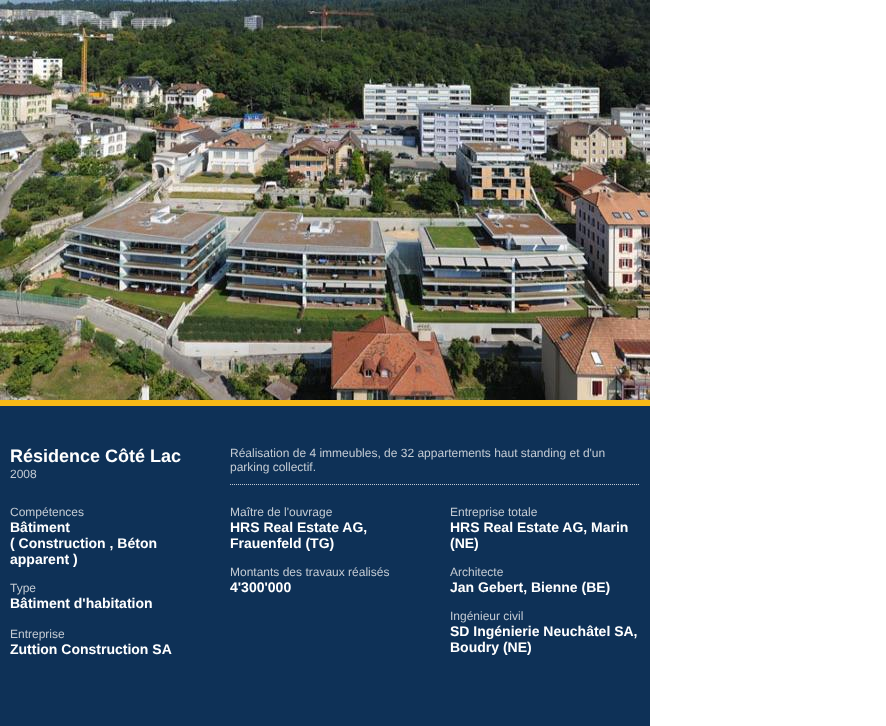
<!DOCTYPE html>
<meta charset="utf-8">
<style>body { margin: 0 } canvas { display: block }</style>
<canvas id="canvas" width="886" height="726"></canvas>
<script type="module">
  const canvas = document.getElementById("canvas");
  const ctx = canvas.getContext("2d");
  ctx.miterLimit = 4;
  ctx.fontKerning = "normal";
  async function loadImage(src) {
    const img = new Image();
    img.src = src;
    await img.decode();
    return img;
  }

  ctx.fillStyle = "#ffffff";
  ctx.fillRect(0, 0, 886, 726);
  ctx.drawImage(await loadImage("img1.png"), 0, 0, 650, 400);
  ctx.fillStyle = "#f7b916";
  ctx.fillRect(0, 400, 650, 6);
  ctx.fillStyle = "#0e3157";
  ctx.fillRect(0, 406, 650, 320);
  ctx.font = "bold 18px Liberation Sans";
  ctx.fillStyle = "#ffffff";
  ctx.fillText("Résidence Côté Lac", 10, 462);
  ctx.font = "12px Liberation Sans";
  ctx.fillStyle = "#c4cbd3";
  ctx.fillText("2008", 10, 478);
  ctx.beginPath();
  ctx.moveTo(230, 484.5);
  ctx.lineTo(640, 484.5);
  ctx.strokeStyle = "#c4cbd3";
  ctx.setLineDash([1, 1]);
  ctx.stroke();
  ctx.fillText("Réalisation de 4 immeubles, de 32 appartements haut standing et d'un", 230, 457);
  ctx.fillText("parking collectif.", 230, 471);
  ctx.fillText("Compétences", 10, 516);
  ctx.font = "bold 14px Liberation Sans";
  ctx.fillStyle = "#ffffff";
  ctx.fillText("Bâtiment", 10, 532);
  ctx.fillText("( Construction , Béton", 10, 548);
  ctx.fillText("apparent )", 10, 564);
  ctx.font = "12px Liberation Sans";
  ctx.fillStyle = "#c4cbd3";
  ctx.fillText("Type", 10, 592);
  ctx.font = "bold 14px Liberation Sans";
  ctx.fillStyle = "#ffffff";
  ctx.fillText("Bâtiment d'habitation", 10, 608);
  ctx.font = "12px Liberation Sans";
  ctx.fillStyle = "#c4cbd3";
  ctx.fillText("Entreprise", 10, 638);
  ctx.font = "bold 14px Liberation Sans";
  ctx.fillStyle = "#ffffff";
  ctx.fillText("Zuttion Construction SA", 10, 654);
  ctx.font = "12px Liberation Sans";
  ctx.fillStyle = "#c4cbd3";
  ctx.fillText("Maître de l'ouvrage", 230, 516);
  ctx.font = "bold 14px Liberation Sans";
  ctx.fillStyle = "#ffffff";
  ctx.fillText("HRS Real Estate AG,", 230, 532);
  ctx.fillText("Frauenfeld (TG)", 230, 548);
  ctx.font = "12px Liberation Sans";
  ctx.fillStyle = "#c4cbd3";
  ctx.fillText("Montants des travaux réalisés", 230, 576);
  ctx.font = "bold 14px Liberation Sans";
  ctx.fillStyle = "#ffffff";
  ctx.fillText("4'300'000", 230, 592);
  ctx.font = "12px Liberation Sans";
  ctx.fillStyle = "#c4cbd3";
  ctx.fillText("Entreprise totale", 450, 516);
  ctx.font = "bold 14px Liberation Sans";
  ctx.fillStyle = "#ffffff";
  ctx.fillText("HRS Real Estate AG, Marin", 450, 532);
  ctx.fillText("(NE)", 450, 548);
  ctx.font = "12px Liberation Sans";
  ctx.fillStyle = "#c4cbd3";
  ctx.fillText("Architecte", 450, 576);
  ctx.font = "bold 14px Liberation Sans";
  ctx.fillStyle = "#ffffff";
  ctx.fillText("Jan Gebert, Bienne (BE)", 450, 592);
  ctx.font = "12px Liberation Sans";
  ctx.fillStyle = "#c4cbd3";
  ctx.fillText("Ingénieur civil", 450, 620);
  ctx.font = "bold 14px Liberation Sans";
  ctx.fillStyle = "#ffffff";
  ctx.fillText("SD Ingénierie Neuchâtel SA,", 450, 636);
  ctx.fillText("Boudry (NE)", 450, 652);
</script>
